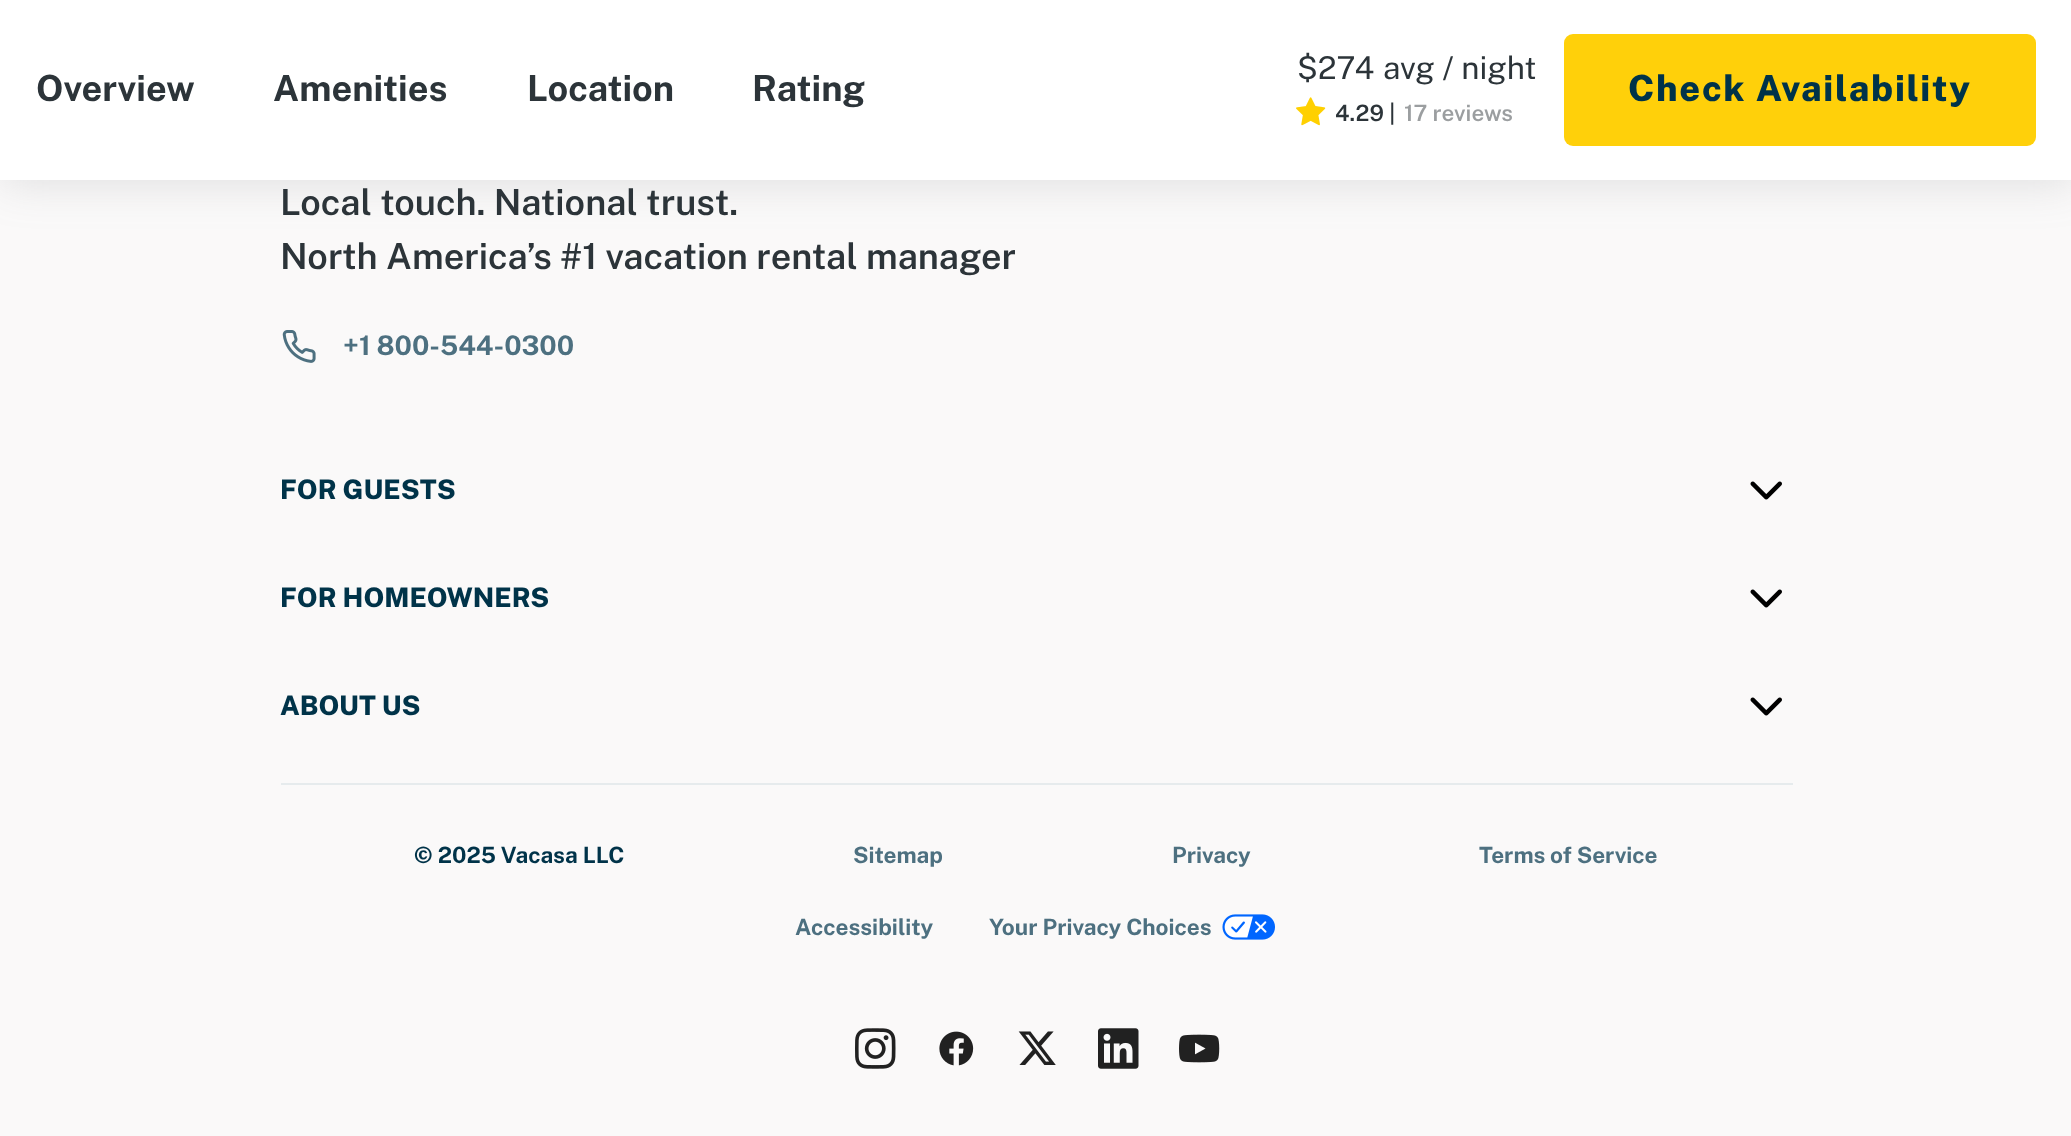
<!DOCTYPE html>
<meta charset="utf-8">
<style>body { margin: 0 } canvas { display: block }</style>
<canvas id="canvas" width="2071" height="1136"></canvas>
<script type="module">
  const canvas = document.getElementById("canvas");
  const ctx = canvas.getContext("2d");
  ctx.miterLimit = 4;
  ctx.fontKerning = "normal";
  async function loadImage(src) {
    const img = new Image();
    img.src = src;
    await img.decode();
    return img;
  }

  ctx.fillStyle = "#faf9f9";
  ctx.fillRect(0, 0, 2071, 1136);
  ctx.fillStyle = "rgba(112, 117, 121, 0.2)";
  ctx.filter = "blur(22.5px)";
  ctx.beginPath();
  ctx.rect(2, 2, 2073, 180);
  ctx.fill();
  ctx.filter = "none";
  ctx.fillStyle = "#ffffff";
  ctx.fillRect(0, 0, 2071, 180);
  ctx.font = "bold 36px Public Sans";
  ctx.fillStyle = "#2c3439";
  ctx.fillText("Overview", 36, 101);
  ctx.fillText("Amenities", 273, 101);
  ctx.fillText("Location", 527, 101);
  ctx.fillText("Rating", 752, 101);
  ctx.font = "31.5px Public Sans";
  ctx.fillText("$274", 1297, 79);
  ctx.fillText("avg / night", 1383, 79);
  ctx.drawImage(await loadImage("img1.png"), 1296, 97, 30, 29);
  ctx.font = "600 22.5px Public Sans";
  ctx.fillText("4.29 |", 1335, 121);
  ctx.fillStyle = "#9b9ea0";
  ctx.fillText("17 reviews", 1404, 121);
  ctx.fillStyle = "#ffd00a";
  ctx.beginPath();
  ctx.roundRect(1564, 34, 472, 112, 9);
  ctx.fill();
  ctx.letterSpacing = "1.7px";
  ctx.font = "800 36px Public Sans";
  ctx.fillStyle = "#003349";
  ctx.fillText("Check Availability", 1628, 101);
  ctx.letterSpacing = "0px";
  ctx.font = "600 36px Public Sans";
  ctx.fillStyle = "#2c3439";
  ctx.fillText("Local touch. National trust.", 280, 215);
  ctx.fillText("North America’s #1 vacation rental manager", 280, 269);
  ctx.drawImage(await loadImage("img2.png"), 282, 330, 34, 33);
  ctx.font = "bold 27px Public Sans";
  ctx.fillStyle = "#4d7080";
  ctx.fillText("+1 800-544-0300", 343, 355);
  ctx.font = "800 27px Public Sans";
  ctx.fillStyle = "#003349";
  ctx.fillText("FOR GUESTS", 280, 499);
  ctx.drawImage(await loadImage("img3.png"), 1750, 481, 32, 19);
  ctx.fillText("FOR HOMEOWNERS", 280, 607);
  ctx.drawImage(await loadImage("img3.png"), 1750, 589, 32, 19);
  ctx.fillText("ABOUT US", 280, 715);
  ctx.drawImage(await loadImage("img3.png"), 1750, 697, 32, 19);
  ctx.fillStyle = "#e6ebed";
  ctx.fillRect(281, 783, 1512, 2);
  ctx.font = "bold 22.5px Public Sans";
  ctx.fillStyle = "#003349";
  ctx.fillText("© 2025 Vacasa LLC", 414, 863);
  ctx.fillStyle = "#4d7080";
  ctx.fillText("Sitemap", 853, 863);
  ctx.fillText("Privacy", 1172, 863);
  ctx.fillText("Terms of Service", 1479, 863);
  ctx.fillText("Accessibility", 795, 935);
  ctx.fillText("Your Privacy Choices", 989, 935);
  ctx.drawImage(await loadImage("img4.png"), 1222, 914, 53, 26);
  ctx.drawImage(await loadImage("img5.png"), 855, 1028, 41, 41);
  ctx.drawImage(await loadImage("img6.png"), 939, 1031, 35, 35);
  ctx.drawImage(await loadImage("img7.png"), 1018, 1031, 38, 34);
  ctx.drawImage(await loadImage("img8.png"), 1098, 1028, 41, 41);
  ctx.drawImage(await loadImage("img9.png"), 1179, 1034, 41, 29);
</script>
